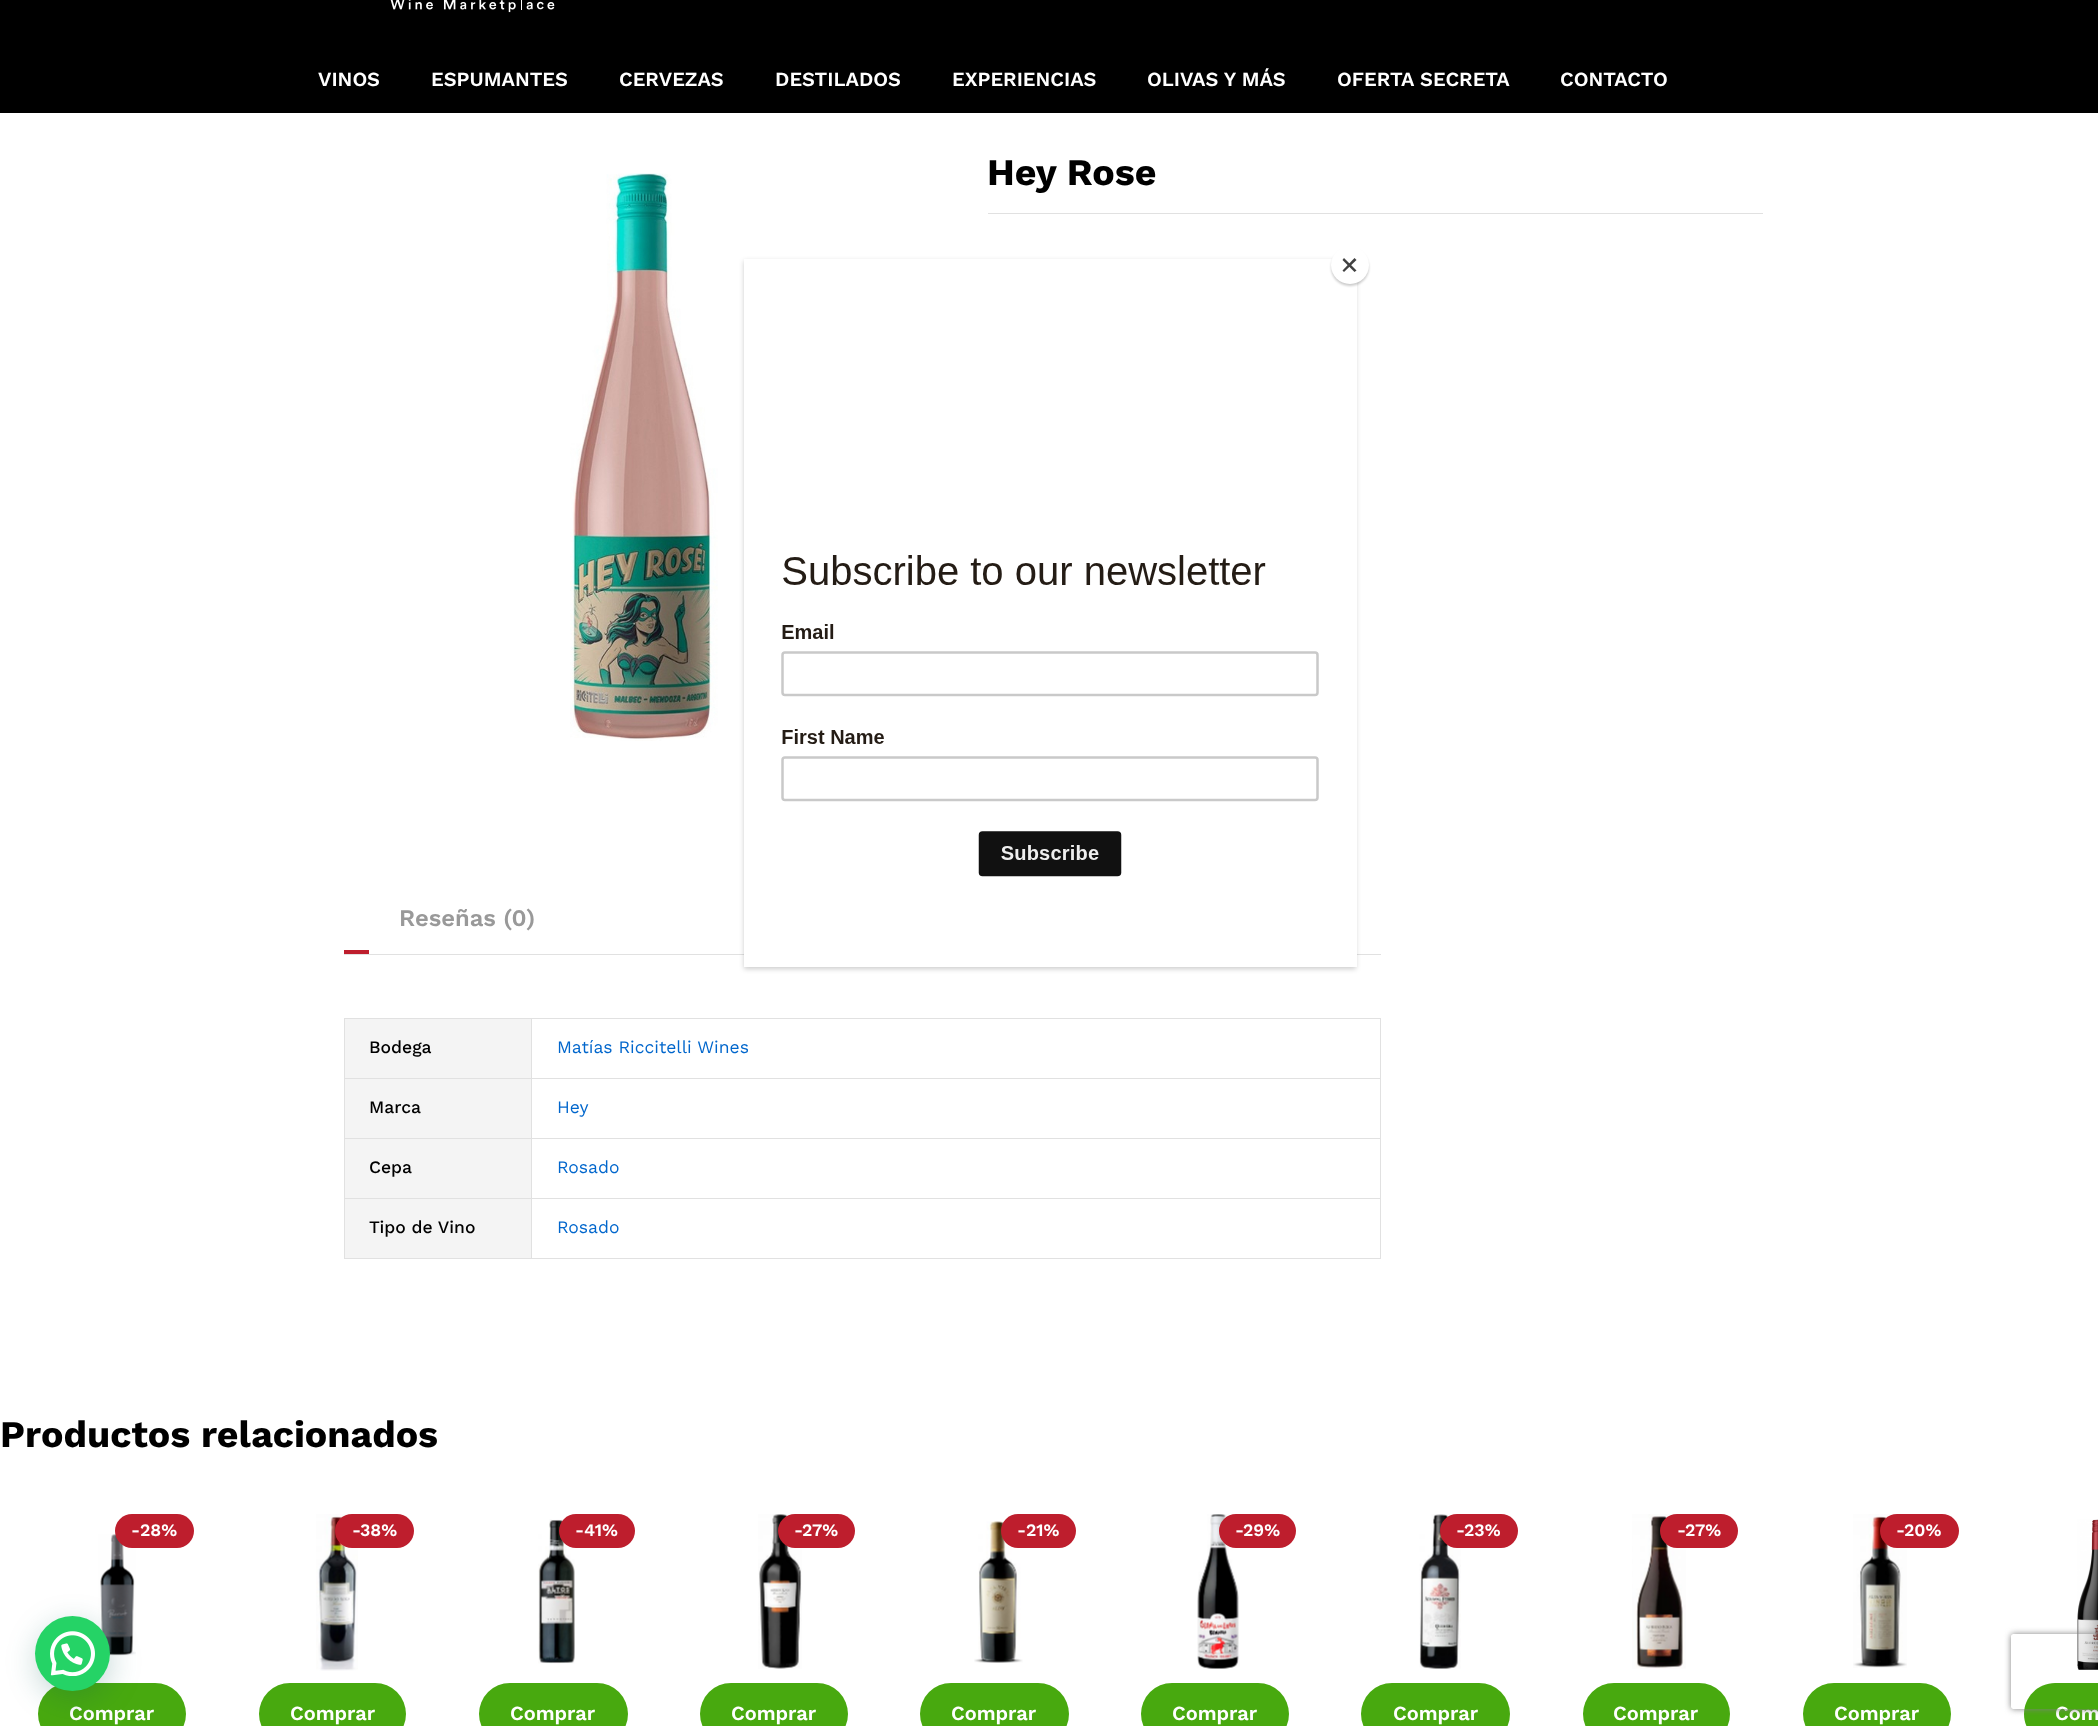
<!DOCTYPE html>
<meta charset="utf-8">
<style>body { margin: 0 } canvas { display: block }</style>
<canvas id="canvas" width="2098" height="1726"></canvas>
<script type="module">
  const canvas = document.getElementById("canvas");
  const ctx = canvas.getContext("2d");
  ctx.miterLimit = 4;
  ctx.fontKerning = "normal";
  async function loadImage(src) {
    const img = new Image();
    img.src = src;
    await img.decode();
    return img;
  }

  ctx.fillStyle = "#ffffff";
  ctx.fillRect(0, 0, 2098, 1726);
  ctx.fillStyle = "#000000";
  ctx.fillRect(0, 0, 2098, 113);
  ctx.drawImage(await loadImage("img1.png"), 390, 0, 165, 13);
  ctx.font = "600 20px Work Sans";
  ctx.fillStyle = "#ffffff";
  ctx.fillText("VINOS", 318, 86);
  ctx.fillText("ESPUMANTES", 431, 86);
  ctx.fillText("CERVEZAS", 619, 86);
  ctx.fillText("DESTILADOS", 775, 86);
  ctx.fillText("EXPERIENCIAS", 952, 86);
  ctx.fillText("OLIVAS Y MÁS", 1147, 86);
  ctx.fillText("OFERTA SECRETA", 1337, 86);
  ctx.fillText("CONTACTO", 1560, 86);
  ctx.drawImage(await loadImage("img2.png"), 570, 173, 148, 568);
  ctx.fillStyle = "#e1e1e1";
  ctx.fillRect(988, 213, 775, 1);
  ctx.font = "bold 37.5px Work Sans";
  ctx.fillStyle = "#000000";
  ctx.fillText("Hey Rose", 987, 185);
  ctx.fillStyle = "#e1e1e1";
  ctx.fillRect(344, 954, 1037, 1);
  ctx.font = "600 23.75px Work Sans";
  ctx.fillStyle = "#999999";
  ctx.fillText("Reseñas (0)", 399, 926);
  ctx.fillStyle = "#be1e2d";
  ctx.fillRect(344, 950, 25, 4);
  ctx.fillStyle = "#e1e1e1";
  ctx.fillRect(344, 1018, 1037, 1);
  ctx.fillRect(1380, 1018, 1, 241);
  ctx.fillRect(344, 1018, 1, 241);
  ctx.fillStyle = "#f4f4f4";
  ctx.fillRect(345, 1019, 186, 59);
  ctx.fillStyle = "#e1e1e1";
  ctx.fillRect(531, 1258, 850, 1);
  ctx.fillRect(531, 1198, 1, 61);
  ctx.fillRect(531, 1198, 850, 1);
  ctx.fillRect(531, 1138, 1, 61);
  ctx.fillRect(531, 1138, 850, 1);
  ctx.fillRect(531, 1078, 1, 61);
  ctx.fillRect(531, 1078, 850, 1);
  ctx.fillRect(531, 1018, 1, 61);
  ctx.fillRect(344, 1078, 189, 1);
  ctx.font = "500 17.5px Work Sans";
  ctx.fillStyle = "#000000";
  ctx.fillText("Bodega", 369, 1053);
  ctx.font = "17.5px Work Sans";
  ctx.fillStyle = "#0066cc";
  ctx.fillText("Matías Riccitelli Wines", 557, 1053);
  ctx.fillStyle = "#f4f4f4";
  ctx.fillRect(345, 1079, 186, 59);
  ctx.fillStyle = "#e1e1e1";
  ctx.fillRect(344, 1138, 189, 1);
  ctx.font = "500 17.5px Work Sans";
  ctx.fillStyle = "#000000";
  ctx.fillText("Marca", 369, 1113);
  ctx.font = "17.5px Work Sans";
  ctx.fillStyle = "#0066cc";
  ctx.fillText("Hey", 557, 1113);
  ctx.fillStyle = "#f4f4f4";
  ctx.fillRect(345, 1139, 186, 59);
  ctx.fillStyle = "#e1e1e1";
  ctx.fillRect(344, 1198, 189, 1);
  ctx.font = "500 17.5px Work Sans";
  ctx.fillStyle = "#000000";
  ctx.fillText("Cepa", 369, 1173);
  ctx.font = "17.5px Work Sans";
  ctx.fillStyle = "#0066cc";
  ctx.fillText("Rosado", 557, 1173);
  ctx.fillStyle = "#f4f4f4";
  ctx.fillRect(345, 1199, 186, 59);
  ctx.fillStyle = "#e1e1e1";
  ctx.fillRect(344, 1258, 189, 1);
  ctx.font = "500 17.5px Work Sans";
  ctx.fillStyle = "#000000";
  ctx.fillText("Tipo de Vino", 369, 1233);
  ctx.font = "17.5px Work Sans";
  ctx.fillStyle = "#0066cc";
  ctx.fillText("Rosado", 557, 1233);
  ctx.font = "bold 37.5px Work Sans";
  ctx.fillStyle = "#000000";
  ctx.fillText("Productos relacionados", 0, 1447);
  ctx.drawImage(await loadImage("img3.png"), 98, 1534, 38, 122);
  ctx.fillStyle = "#be1e2d";
  ctx.beginPath();
  ctx.roundRect(115, 1514, 79, 34, 17);
  ctx.fill();
  ctx.font = "600 17.5px Work Sans";
  ctx.fillStyle = "#ffffff";
  ctx.fillText("-", 131, 1536);
  ctx.fillText("28%", 140, 1536);
  ctx.fillStyle = "#48a90f";
  ctx.beginPath();
  ctx.roundRect(38, 1683, 148, 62, 31);
  ctx.fill();
  ctx.font = "600 20px Work Sans";
  ctx.fillStyle = "#ffffff";
  ctx.fillText("Comprar", 69, 1720);
  ctx.drawImage(await loadImage("img4.png"), 316, 1514, 42, 157);
  ctx.fillStyle = "#be1e2d";
  ctx.beginPath();
  ctx.roundRect(335, 1514, 79, 34, 17);
  ctx.fill();
  ctx.font = "600 17.5px Work Sans";
  ctx.fillStyle = "#ffffff";
  ctx.fillText("-", 352, 1536);
  ctx.fillText("38%", 360, 1536);
  ctx.fillStyle = "#48a90f";
  ctx.beginPath();
  ctx.roundRect(259, 1683, 147, 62, 31);
  ctx.fill();
  ctx.font = "600 20px Work Sans";
  ctx.fillStyle = "#ffffff";
  ctx.fillText("Comprar", 290, 1720);
  ctx.drawImage(await loadImage("img5.png"), 538, 1519, 37, 145);
  ctx.fillStyle = "#be1e2d";
  ctx.beginPath();
  ctx.roundRect(559, 1514, 76, 34, 17);
  ctx.fill();
  ctx.font = "600 17.5px Work Sans";
  ctx.fillStyle = "#ffffff";
  ctx.fillText("-41%", 575, 1536);
  ctx.fillStyle = "#48a90f";
  ctx.beginPath();
  ctx.roundRect(479, 1683, 149, 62, 31);
  ctx.fill();
  ctx.font = "600 20px Work Sans";
  ctx.fillStyle = "#ffffff";
  ctx.fillText("Comprar", 510, 1720);
  ctx.drawImage(await loadImage("img6.png"), 758, 1514, 44, 155);
  ctx.fillStyle = "#be1e2d";
  ctx.beginPath();
  ctx.roundRect(778, 1514, 77, 34, 17);
  ctx.fill();
  ctx.font = "600 17.5px Work Sans";
  ctx.fillStyle = "#ffffff";
  ctx.fillText("-", 794, 1536);
  ctx.fillText("27%", 802, 1536);
  ctx.fillStyle = "#48a90f";
  ctx.beginPath();
  ctx.roundRect(700, 1683, 148, 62, 31);
  ctx.fill();
  ctx.font = "600 20px Work Sans";
  ctx.fillStyle = "#ffffff";
  ctx.fillText("Comprar", 731, 1720);
  ctx.drawImage(await loadImage("img7.png"), 974, 1521, 49, 142);
  ctx.fillStyle = "#be1e2d";
  ctx.beginPath();
  ctx.roundRect(1001, 1514, 75, 34, 17);
  ctx.fill();
  ctx.font = "600 17.5px Work Sans";
  ctx.fillStyle = "#ffffff";
  ctx.fillText("-", 1017, 1536);
  ctx.fillText("21%", 1026, 1536);
  ctx.fillStyle = "#48a90f";
  ctx.beginPath();
  ctx.roundRect(920, 1683, 149, 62, 31);
  ctx.fill();
  ctx.font = "600 20px Work Sans";
  ctx.fillStyle = "#ffffff";
  ctx.fillText("Comprar", 951, 1720);
  ctx.drawImage(await loadImage("img8.png"), 1197, 1514, 43, 155);
  ctx.fillStyle = "#be1e2d";
  ctx.beginPath();
  ctx.roundRect(1219, 1514, 77, 34, 17);
  ctx.fill();
  ctx.font = "600 17.5px Work Sans";
  ctx.fillStyle = "#ffffff";
  ctx.fillText("-", 1235, 1536);
  ctx.fillText("29%", 1243, 1536);
  ctx.fillStyle = "#48a90f";
  ctx.beginPath();
  ctx.roundRect(1141, 1683, 148, 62, 31);
  ctx.fill();
  ctx.font = "600 20px Work Sans";
  ctx.fillStyle = "#ffffff";
  ctx.fillText("Comprar", 1172, 1720);
  ctx.drawImage(await loadImage("img9.png"), 1419, 1514, 42, 155);
  ctx.fillStyle = "#be1e2d";
  ctx.beginPath();
  ctx.roundRect(1440, 1514, 78, 34, 17);
  ctx.fill();
  ctx.font = "600 17.5px Work Sans";
  ctx.fillStyle = "#ffffff";
  ctx.fillText("-", 1456, 1536);
  ctx.fillText("23%", 1464, 1536);
  ctx.fillStyle = "#48a90f";
  ctx.beginPath();
  ctx.roundRect(1361, 1683, 149, 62, 31);
  ctx.fill();
  ctx.font = "600 20px Work Sans";
  ctx.fillStyle = "#ffffff";
  ctx.fillText("Comprar", 1393, 1720);
  ctx.drawImage(await loadImage("img10.png"), 1632, 1514, 54, 155);
  ctx.fillStyle = "#be1e2d";
  ctx.beginPath();
  ctx.roundRect(1660, 1514, 78, 34, 17);
  ctx.fill();
  ctx.font = "600 17.5px Work Sans";
  ctx.fillStyle = "#ffffff";
  ctx.fillText("-", 1677, 1536);
  ctx.fillText("27%", 1685, 1536);
  ctx.fillStyle = "#48a90f";
  ctx.beginPath();
  ctx.roundRect(1583, 1683, 147, 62, 31);
  ctx.fill();
  ctx.font = "600 20px Work Sans";
  ctx.fillStyle = "#ffffff";
  ctx.fillText("Comprar", 1613, 1720);
  ctx.drawImage(await loadImage("img11.png"), 1853, 1514, 54, 154);
  ctx.fillStyle = "#be1e2d";
  ctx.beginPath();
  ctx.roundRect(1880, 1514, 79, 34, 17);
  ctx.fill();
  ctx.font = "600 17.5px Work Sans";
  ctx.fillStyle = "#ffffff";
  ctx.fillText("-", 1896, 1536);
  ctx.fillText("20%", 1904, 1536);
  ctx.fillStyle = "#48a90f";
  ctx.beginPath();
  ctx.roundRect(1803, 1683, 148, 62, 31);
  ctx.fill();
  ctx.font = "600 20px Work Sans";
  ctx.fillStyle = "#ffffff";
  ctx.fillText("Comprar", 1834, 1720);
  ctx.drawImage(await loadImage("img12.png"), 2077, 1519, 21, 151);
  ctx.fillStyle = "#48a90f";
  ctx.beginPath();
  ctx.moveTo(2055, 1683);
  ctx.lineTo(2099, 1683);
  ctx.lineTo(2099, 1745);
  ctx.lineTo(2055, 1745);
  ctx.bezierCurveTo(2038, 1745, 2024, 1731, 2024, 1714);
  ctx.bezierCurveTo(2024, 1697, 2038, 1683, 2055, 1683);
  ctx.closePath();
  ctx.fill();
  ctx.fillStyle = "#ffffff";
  ctx.fillText("Com", 2055, 1720);
  ctx.fillStyle = "rgba(0, 0, 0, 0.2)";
  ctx.filter = "blur(2.5px)";
  ctx.beginPath();
  ctx.rect(744, 261, 612, 708);
  ctx.fill();
  ctx.filter = "none";
  ctx.drawImage(await loadImage("img13.png"), 744, 259, 613, 708);
  ctx.filter = "blur(1px)";
  ctx.beginPath();
  ctx.roundRect(1331, 249, 38, 37, 18.5);
  ctx.fill();
  ctx.filter = "none";
  ctx.fillStyle = "#ffffff";
  ctx.beginPath();
  ctx.arc(1350, 265, 19, 0, Math.PI * 2);
  ctx.fill();
  ctx.fillStyle = "#414141";
  ctx.beginPath();
  ctx.moveTo(1354.5, 258);
  ctx.lineTo(1356.5, 260);
  ctx.lineTo(1344, 272);
  ctx.lineTo(1342.5, 270.5);
  ctx.closePath();
  ctx.fill();
  ctx.beginPath();
  ctx.moveTo(1342.5, 260);
  ctx.lineTo(1344, 258);
  ctx.lineTo(1356.5, 270.5);
  ctx.lineTo(1354.5, 272);
  ctx.closePath();
  ctx.fill();
  ctx.fillStyle = "rgba(7, 94, 84, 0.24)";
  ctx.filter = "blur(15px)";
  ctx.beginPath();
  ctx.roundRect(36, 1624, 75, 75, 37.5);
  ctx.fill();
  ctx.filter = "none";
  ctx.fillStyle = "#25d366";
  ctx.beginPath();
  ctx.arc(72.5, 1653.5, 37.5, 0, Math.PI * 2);
  ctx.fill();
  ctx.drawImage(await loadImage("img14.png"), 50, 1631, 45, 45);
  ctx.save();
  ctx.beginPath();
  ctx.moveTo(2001, 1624);
  ctx.lineTo(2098, 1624);
  ctx.lineTo(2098, 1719);
  ctx.lineTo(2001, 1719);
  ctx.closePath();
  ctx.moveTo(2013.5, 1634);
  ctx.lineTo(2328.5, 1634);
  ctx.bezierCurveTo(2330, 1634, 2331, 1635, 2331, 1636.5);
  ctx.lineTo(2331, 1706.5);
  ctx.bezierCurveTo(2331, 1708, 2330, 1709, 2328.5, 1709);
  ctx.lineTo(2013.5, 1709);
  ctx.bezierCurveTo(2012, 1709, 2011, 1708, 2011, 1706.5);
  ctx.lineTo(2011, 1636.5);
  ctx.bezierCurveTo(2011, 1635, 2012, 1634, 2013.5, 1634);
  ctx.closePath();
  ctx.clip("evenodd");
  ctx.fillStyle = "#808080";
  ctx.filter = "blur(3px)";
  ctx.beginPath();
  ctx.roundRect(2011, 1634, 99, 75, 2.5);
  ctx.fill();
  ctx.filter = "none";
  ctx.restore();
</script>
